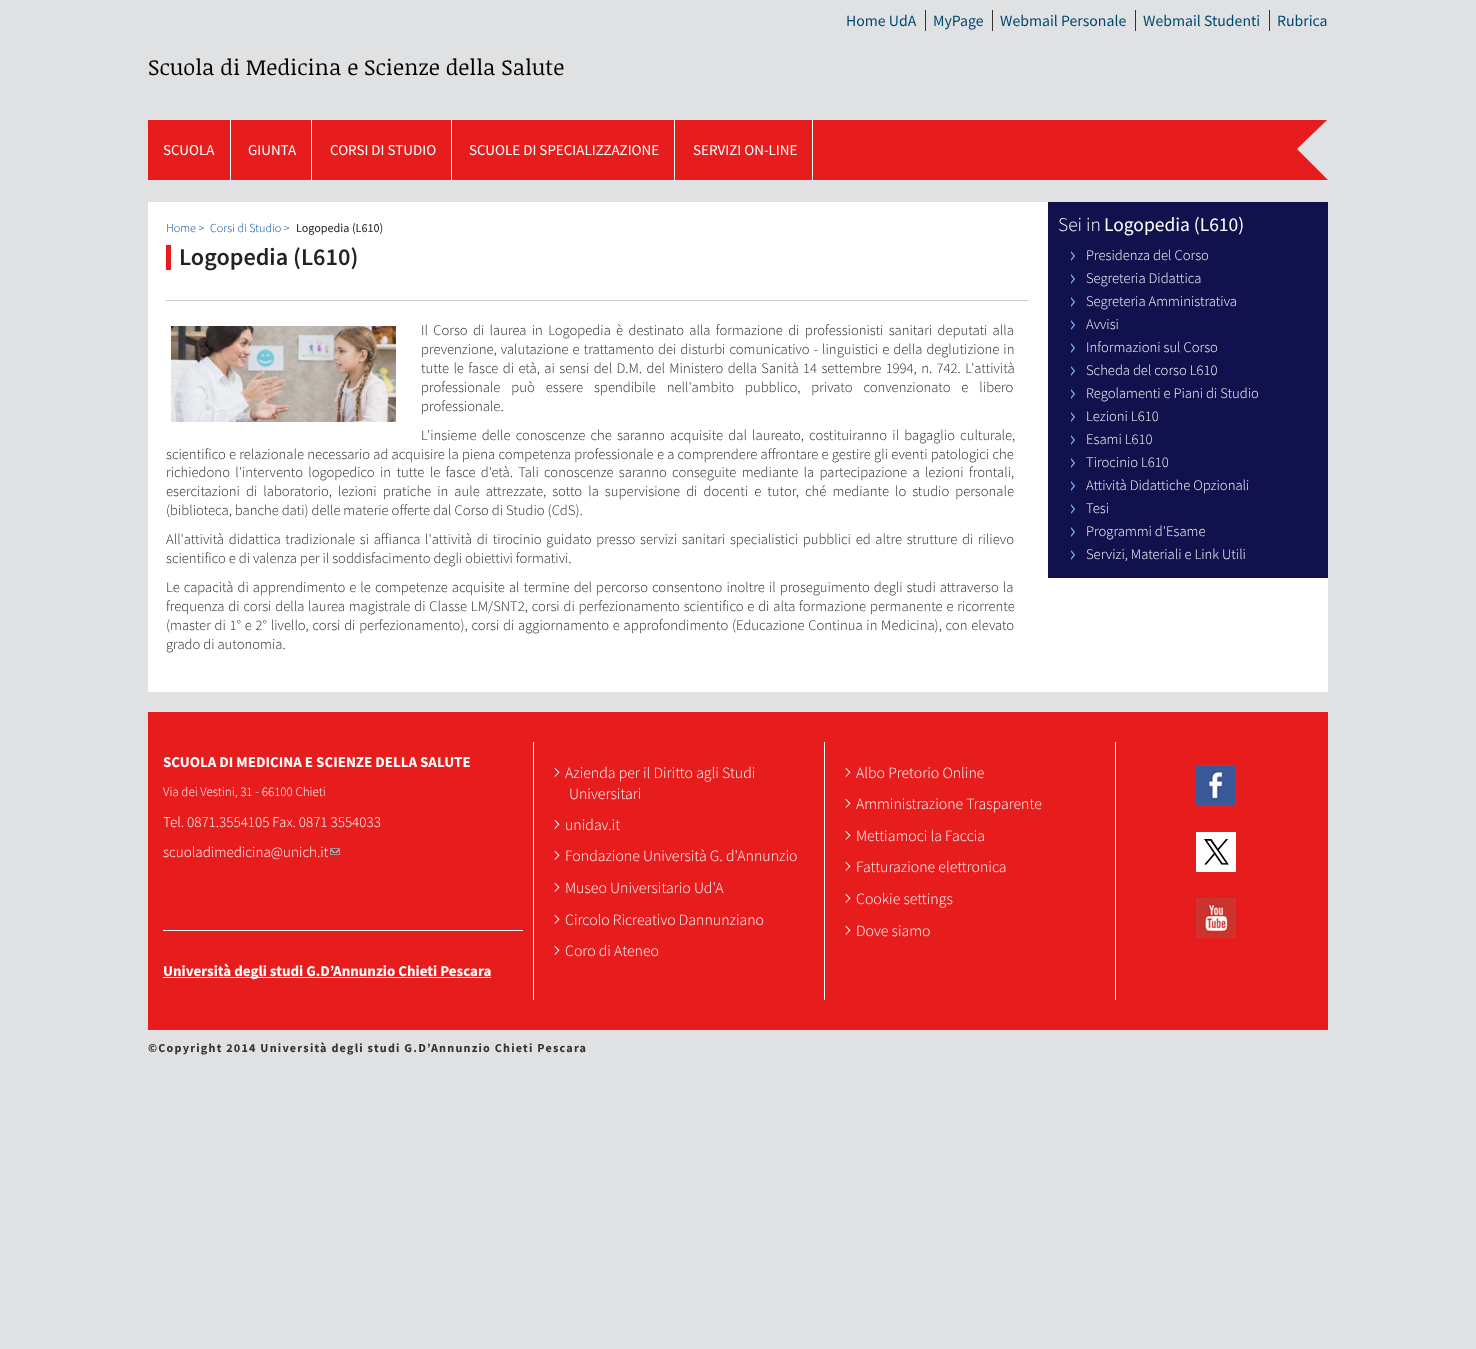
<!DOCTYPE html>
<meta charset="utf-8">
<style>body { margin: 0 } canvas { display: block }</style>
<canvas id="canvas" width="1476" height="1349"></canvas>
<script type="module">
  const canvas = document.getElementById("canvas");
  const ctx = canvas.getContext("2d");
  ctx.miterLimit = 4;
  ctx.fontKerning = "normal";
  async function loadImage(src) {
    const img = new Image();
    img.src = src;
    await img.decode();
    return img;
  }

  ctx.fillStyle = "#e0e1e2";
  ctx.fillRect(0, 0, 1476, 1349);
  ctx.fillStyle = "#333333";
  ctx.fillRect(925, 10, 1, 21);
  ctx.font = "15.75px Source Sans Pro";
  ctx.fillStyle = "#01486f";
  ctx.fillText("Home UdA", 846, 26);
  ctx.fillStyle = "#333333";
  ctx.fillRect(992, 10, 1, 21);
  ctx.fillStyle = "#01486f";
  ctx.fillText("MyPage", 933, 26);
  ctx.fillStyle = "#333333";
  ctx.fillRect(1135, 10, 1, 21);
  ctx.fillStyle = "#01486f";
  ctx.fillText("Webmail Personale", 1000, 26);
  ctx.fillStyle = "#333333";
  ctx.fillRect(1269, 10, 1, 21);
  ctx.fillStyle = "#01486f";
  ctx.fillText("Webmail Studenti", 1143, 26);
  ctx.fillText("Rubrica", 1277, 26);
  ctx.font = "21.9px Noticia Text";
  ctx.fillStyle = "#000000";
  ctx.fillText("Scuola di Medicina e Scienze della Salute", 148, 75);
  ctx.fillStyle = "#e71d1d";
  ctx.fillRect(148, 120, 1180, 60);
  ctx.drawImage(await loadImage("img1.png"), 1297, 120, 41, 60);
  ctx.fillStyle = "#ffffff";
  ctx.fillRect(230, 120, 1, 60);
  ctx.font = "15px Source Sans Pro";
  ctx.fillText("SCUOLA", 163, 155);
  ctx.fillRect(311, 120, 1, 60);
  ctx.fillText("GIUNTA", 248, 155);
  ctx.fillRect(451, 120, 1, 60);
  ctx.fillText("CORSI DI STUDIO", 330, 155);
  ctx.fillRect(674, 120, 1, 60);
  ctx.fillText("SCUOLE DI SPECIALIZZAZIONE", 469, 155);
  ctx.fillRect(812, 120, 1, 60);
  ctx.fillText("SERVIZI ON-LINE", 693, 155);
  ctx.fillRect(148, 202, 880, 490);
  ctx.font = "300 12.15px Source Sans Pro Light";
  ctx.fillStyle = "#0048a0";
  ctx.fillText("Home >", 166, 232);
  ctx.fillText("Corsi di Studio >", 210, 232);
  ctx.font = "12.15px Source Sans Pro";
  ctx.fillStyle = "#222222";
  ctx.fillText("Logopedia (L610)", 296, 232);
  ctx.fillStyle = "#e71d1d";
  ctx.fillRect(166, 245, 5, 25);
  ctx.font = "600 24.25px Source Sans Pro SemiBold";
  ctx.fillStyle = "#222222";
  ctx.fillText("Logopedia (L610)", 179, 265);
  ctx.fillStyle = "#cccccc";
  ctx.fillRect(166, 300, 868, 1);
  ctx.wordSpacing = "2.4px";
  ctx.font = "300 14.6px Source Sans Pro Light";
  ctx.fillStyle = "#222222";
  ctx.fillText("Il Corso di laurea in Logopedia è destinato alla formazione di professionisti sanitari deputati alla", 421, 335);
  ctx.wordSpacing = "1.1px";
  ctx.fillText("prevenzione, valutazione e trattamento dei disturbi comunicativo - linguistici e della deglutizione in", 421, 354);
  ctx.wordSpacing = "1.5px";
  ctx.fillText("tutte le fasce di età, ai sensi del D.M. del Ministero della Sanità 14 settembre 1994, n. 742. L'attività", 421, 373);
  ctx.wordSpacing = "8px";
  ctx.fillText("professionale può essere spendibile nell'ambito pubblico, privato convenzionato e libero", 421, 392);
  ctx.wordSpacing = "0px";
  ctx.fillText("professionale.", 421, 411);
  ctx.wordSpacing = "2.25px";
  ctx.fillText("L'insieme delle conoscenze che saranno acquisite dal laureato, costituiranno il bagaglio culturale,", 421, 440);
  ctx.wordSpacing = "0.3px";
  ctx.fillText("scientifico e relazionale necessario ad acquisire la piena competenza professionale e a comprendere affrontare e gestire gli eventi patologici che", 166, 459);
  ctx.wordSpacing = "2.4px";
  ctx.fillText("richiedono l'intervento logopedico in tutte le fasce d'età. Tali conoscenze saranno conseguite mediante la partecipazione a lezioni frontali,", 166, 477);
  ctx.wordSpacing = "3.1px";
  ctx.fillText("esercitazioni di laboratorio, lezioni pratiche in aule attrezzate, sotto la supervisione di docenti e tutor, ché mediante lo studio personale", 166, 496);
  ctx.wordSpacing = "0px";
  ctx.fillText("(biblioteca, banche dati) delle materie offerte dal Corso di Studio (CdS).", 166, 515);
  ctx.wordSpacing = "1.75px";
  ctx.fillText("All'attività didattica tradizionale si affianca l'attività di tirocinio guidato presso servizi sanitari specialistici pubblici ed altre strutture di rilievo", 166, 544);
  ctx.wordSpacing = "0px";
  ctx.fillText("scientifico e di valenza per il soddisfacimento degli obiettivi formativi.", 166, 563);
  ctx.wordSpacing = "1.1px";
  ctx.fillText("Le capacità di apprendimento e le competenze acquisite al termine del percorso consentono inoltre il proseguimento degli studi attraverso la", 166, 592);
  ctx.wordSpacing = "0.9px";
  ctx.fillText("frequenza di corsi della laurea magistrale di Classe LM/SNT2, corsi di perfezionamento scientifico e di alta formazione permanente e ricorrente", 166, 611);
  ctx.wordSpacing = "0.8px";
  ctx.fillText("(master di 1° e 2° livello, corsi di perfezionamento), corsi di aggiornamento e approfondimento (Educazione Continua in Medicina), con elevato", 166, 630);
  ctx.wordSpacing = "0px";
  ctx.fillText("grado di autonomia.", 166, 649);
  ctx.drawImage(await loadImage("img2.png"), 171, 326, 225, 96);
  ctx.fillStyle = "#ffffff";
  ctx.fillRect(1028, 202, 300, 490);
  ctx.fillStyle = "#11114e";
  ctx.fillRect(1048, 202, 280, 376);
  ctx.font = "300 19.5px Source Sans Pro Light";
  ctx.fillStyle = "#ffffff";
  ctx.fillText("Sei in", 1058, 231);
  ctx.font = "19.5px Source Sans Pro";
  ctx.fillText("Logopedia (L610)", 1104, 231);
  ctx.drawImage(await loadImage("img3.png"), 1071, 251, 4, 10);
  ctx.font = "300 14.6px Source Sans Pro Light";
  ctx.fillText("Presidenza del Corso", 1086, 260);
  ctx.drawImage(await loadImage("img3.png"), 1071, 274, 4, 10);
  ctx.fillText("Segreteria Didattica", 1086, 283);
  ctx.drawImage(await loadImage("img3.png"), 1071, 297, 4, 10);
  ctx.fillText("Segreteria Amministrativa", 1086, 306);
  ctx.drawImage(await loadImage("img3.png"), 1071, 320, 4, 10);
  ctx.fillText("Avvisi", 1086, 329);
  ctx.drawImage(await loadImage("img3.png"), 1071, 343, 4, 10);
  ctx.fillText("Informazioni sul Corso", 1086, 352);
  ctx.drawImage(await loadImage("img3.png"), 1071, 366, 4, 10);
  ctx.fillText("Scheda del corso L610", 1086, 375);
  ctx.drawImage(await loadImage("img3.png"), 1071, 389, 4, 10);
  ctx.fillText("Regolamenti e Piani di Studio", 1086, 398);
  ctx.drawImage(await loadImage("img3.png"), 1071, 412, 4, 10);
  ctx.fillText("Lezioni L610", 1086, 421);
  ctx.drawImage(await loadImage("img3.png"), 1071, 435, 4, 10);
  ctx.fillText("Esami L610", 1086, 444);
  ctx.drawImage(await loadImage("img3.png"), 1071, 458, 4, 10);
  ctx.fillText("Tirocinio L610", 1086, 467);
  ctx.drawImage(await loadImage("img3.png"), 1071, 481, 4, 10);
  ctx.fillText("Attività Didattiche Opzionali", 1086, 490);
  ctx.drawImage(await loadImage("img3.png"), 1071, 504, 4, 10);
  ctx.fillText("Tesi", 1086, 513);
  ctx.drawImage(await loadImage("img3.png"), 1071, 527, 4, 10);
  ctx.fillText("Programmi d'Esame", 1086, 536);
  ctx.drawImage(await loadImage("img3.png"), 1071, 550, 4, 10);
  ctx.fillText("Servizi, Materiali e Link Utili", 1086, 559);
  ctx.fillStyle = "#e71d1d";
  ctx.fillRect(148, 712, 1180, 318);
  ctx.fillStyle = "#ffffff";
  ctx.fillRect(533, 742, 1, 258);
  ctx.font = "bold 15px Source Sans Pro";
  ctx.fillText("SCUOLA DI MEDICINA E SCIENZE DELLA SALUTE", 163, 767);
  ctx.font = "300 13px Source Sans Pro Light";
  ctx.fillText("Via dei Vestini, 31 - 66100 Chieti", 163, 796);
  ctx.font = "300 15px Source Sans Pro Light";
  ctx.fillText("Tel. 0871.3554105 Fax. 0871 3554033", 163, 827);
  ctx.fillText("scuoladimedicina@unich.it", 163, 857);
  ctx.drawImage(await loadImage("img4.png"), 330, 848, 10, 7);
  ctx.fillRect(163, 930, 360, 1);
  ctx.fillRect(163, 977, 328, 1);
  ctx.font = "bold 15px Source Sans Pro";
  ctx.fillText("Università degli studi G.D’Annunzio Chieti Pescara", 163, 976);
  ctx.fillRect(824, 742, 1, 258);
  ctx.font = "15.75px Advent Pro";
  ctx.fillText(">", 554, 778);
  ctx.font = "300 15.75px Source Sans Pro Light";
  ctx.fillText("Azienda per il Diritto agli Studi", 565, 778);
  ctx.fillText("Universitari", 569, 799);
  ctx.font = "15.75px Advent Pro";
  ctx.fillText(">", 554, 830);
  ctx.font = "300 15.75px Source Sans Pro Light";
  ctx.fillText("unidav.it", 565, 830);
  ctx.font = "15.75px Advent Pro";
  ctx.fillText(">", 554, 861);
  ctx.font = "300 15.75px Source Sans Pro Light";
  ctx.fillText("Fondazione Università G. d'Annunzio", 565, 861);
  ctx.font = "15.75px Advent Pro";
  ctx.fillText(">", 554, 893);
  ctx.font = "300 15.75px Source Sans Pro Light";
  ctx.fillText("Museo Universitario Ud'A", 565, 893);
  ctx.font = "15.75px Advent Pro";
  ctx.fillText(">", 554, 925);
  ctx.font = "300 15.75px Source Sans Pro Light";
  ctx.fillText("Circolo Ricreativo Dannunziano", 565, 925);
  ctx.font = "15.75px Advent Pro";
  ctx.fillText(">", 554, 956);
  ctx.font = "300 15.75px Source Sans Pro Light";
  ctx.fillText("Coro di Ateneo", 565, 956);
  ctx.fillRect(1115, 742, 1, 258);
  ctx.font = "15.75px Advent Pro";
  ctx.fillText(">", 845, 778);
  ctx.font = "300 15.75px Source Sans Pro Light";
  ctx.fillText("Albo Pretorio Online", 856, 778);
  ctx.font = "15.75px Advent Pro";
  ctx.fillText(">", 845, 809);
  ctx.font = "300 15.75px Source Sans Pro Light";
  ctx.fillText("Amministrazione Trasparente", 856, 809);
  ctx.font = "15.75px Advent Pro";
  ctx.fillText(">", 845, 841);
  ctx.font = "300 15.75px Source Sans Pro Light";
  ctx.fillText("Mettiamoci la Faccia", 856, 841);
  ctx.font = "15.75px Advent Pro";
  ctx.fillText(">", 845, 872);
  ctx.font = "300 15.75px Source Sans Pro Light";
  ctx.fillText("Fatturazione elettronica", 856, 872);
  ctx.font = "15.75px Advent Pro";
  ctx.fillText(">", 845, 904);
  ctx.font = "300 15.75px Source Sans Pro Light";
  ctx.fillText("Cookie settings", 856, 904);
  ctx.font = "15.75px Advent Pro";
  ctx.fillText(">", 845, 936);
  ctx.font = "300 15.75px Source Sans Pro Light";
  ctx.fillText("Dove siamo", 856, 936);
  ctx.drawImage(await loadImage("img5.png"), 1196, 765, 40, 40);
  ctx.drawImage(await loadImage("img6.png"), 1196, 832, 40, 40);
  ctx.drawImage(await loadImage("img7.png"), 1196, 898, 40, 40);
  ctx.letterSpacing = "1.22px";
  ctx.font = "bold 12.15px Source Sans Pro";
  ctx.fillStyle = "#333333";
  ctx.fillText("©Copyright 2014 Università degli studi G.D’Annunzio Chieti Pescara", 148, 1052);
</script>
